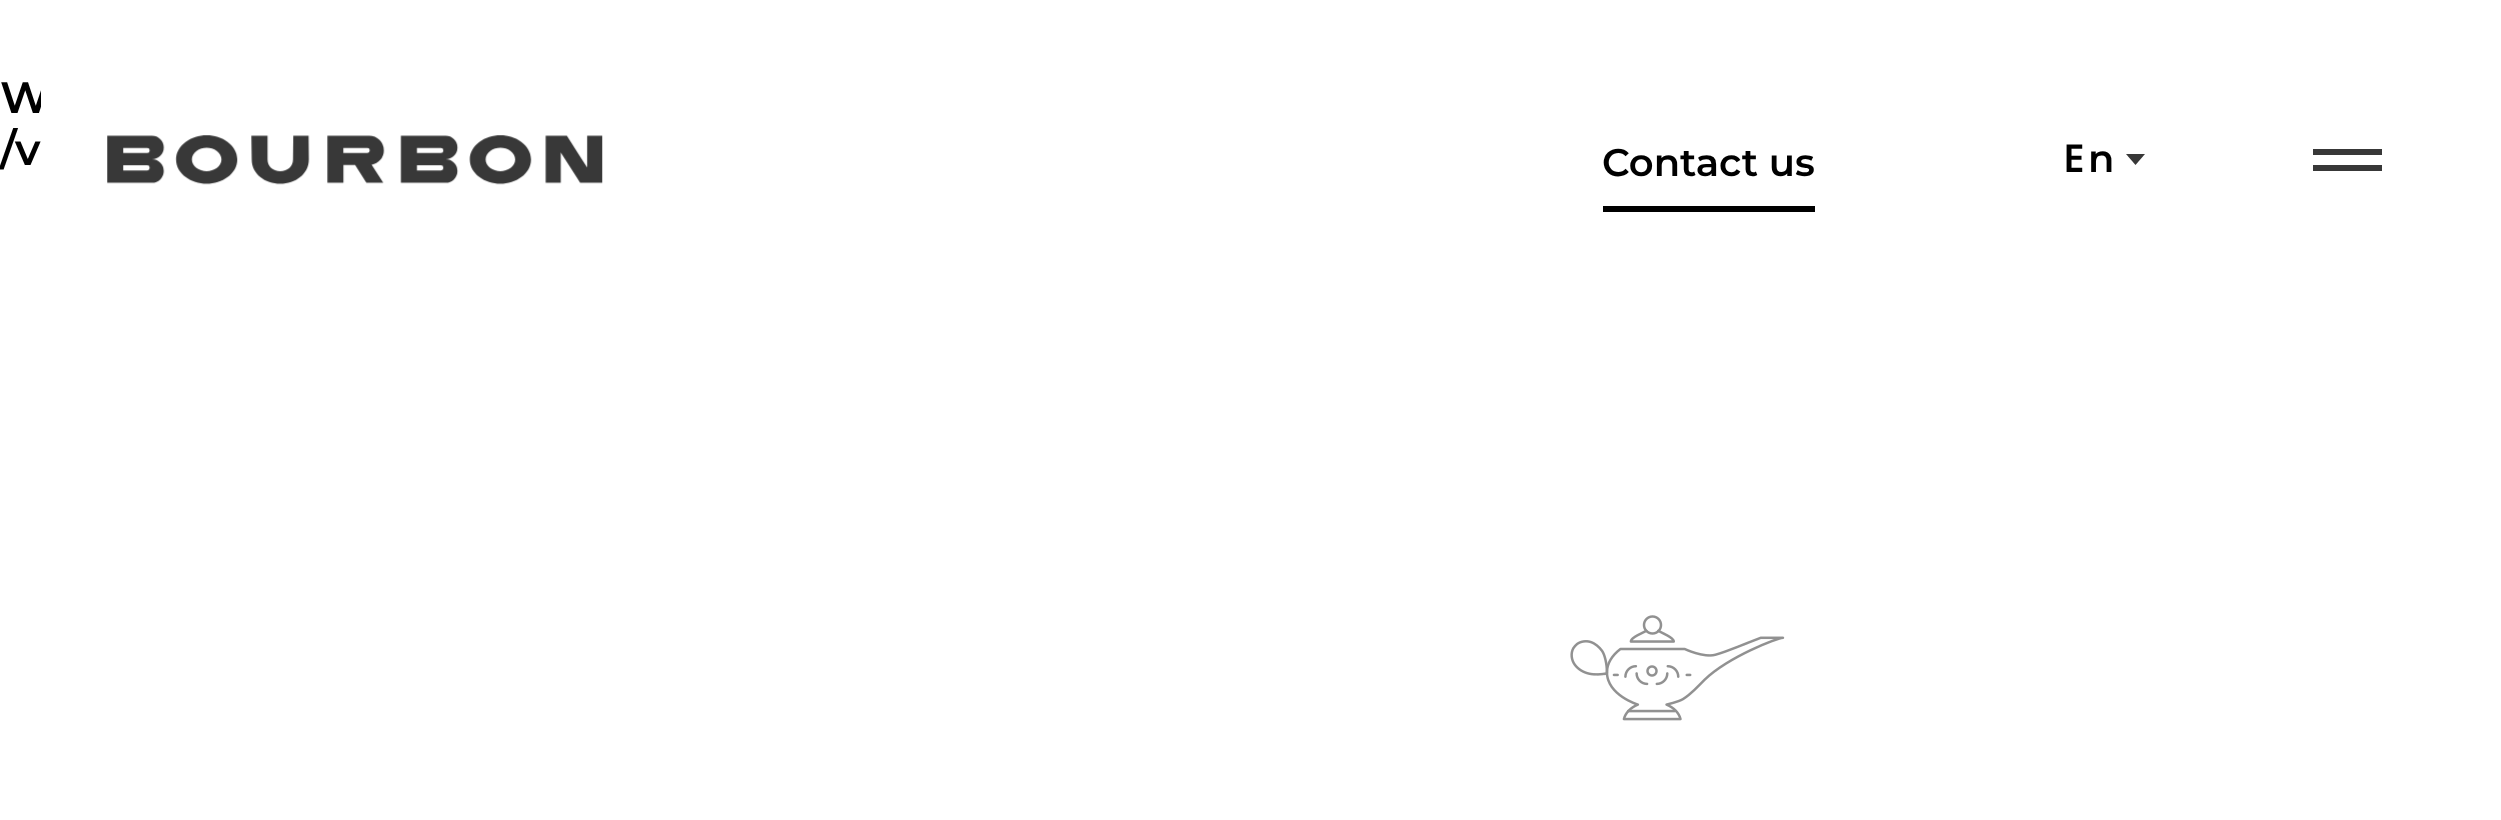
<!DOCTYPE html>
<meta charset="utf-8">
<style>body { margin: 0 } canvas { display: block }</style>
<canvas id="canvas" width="2501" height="820"></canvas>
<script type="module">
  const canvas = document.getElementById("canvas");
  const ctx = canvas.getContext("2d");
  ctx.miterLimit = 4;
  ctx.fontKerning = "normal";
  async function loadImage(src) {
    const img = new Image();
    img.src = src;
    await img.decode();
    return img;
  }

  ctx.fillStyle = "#ffffff";
  ctx.fillRect(0, 0, 2501, 820);
  ctx.font = "600 44px Montserrat";
  ctx.fillStyle = "#000000";
  ctx.fillText("W", 0, 113);
  ctx.fillText("/v", 0, 165);
  ctx.font = "600 38.5px Montserrat";
  ctx.fillText("Contact us", 1602, 176);
  ctx.fillRect(1603, 206, 212, 6);
  ctx.fillStyle = "#ffffff";
  ctx.fillRect(41, 82, 9, 25);
  ctx.drawImage(await loadImage("img1.png"), 107, 135, 496, 50);
  ctx.font = "600 38.5px Noto Sans";
  ctx.fillStyle = "#000000";
  ctx.fillText("E", 2063, 172);
  ctx.font = "600 38.5px Montserrat";
  ctx.fillText("n", 2088, 172);
  ctx.fillStyle = "#383838";
  ctx.beginPath();
  ctx.moveTo(2135.5, 165);
  ctx.lineTo(2126, 154);
  ctx.lineTo(2145, 154);
  ctx.closePath();
  ctx.fill("evenodd");
  ctx.fillRect(2313, 149, 69, 6);
  ctx.fillRect(2313, 165, 69, 6);
  ctx.drawImage(await loadImage("img2.png"), 1570, 615, 215, 106);
</script>
